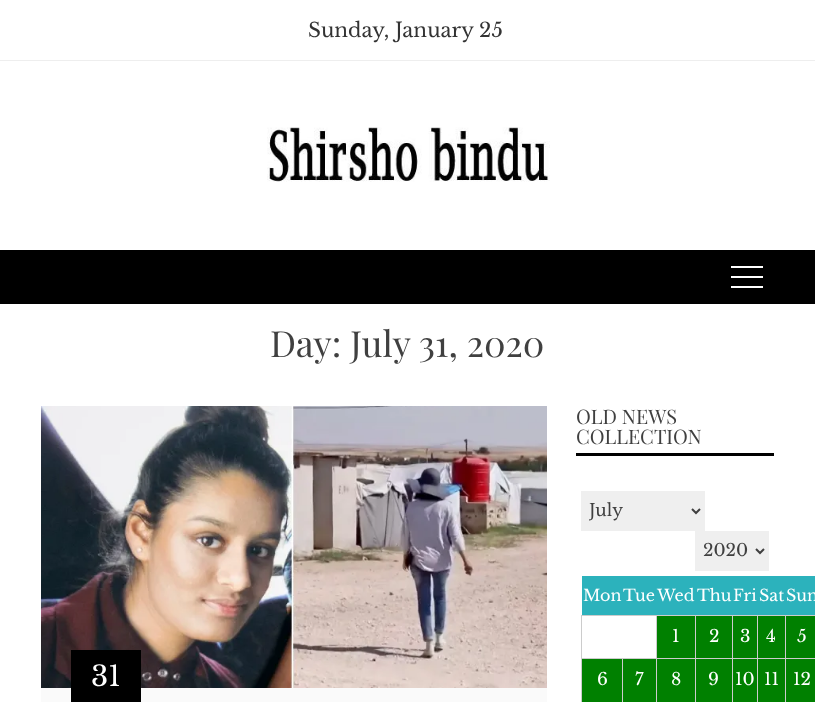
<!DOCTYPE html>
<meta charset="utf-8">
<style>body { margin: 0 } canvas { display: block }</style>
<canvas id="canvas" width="815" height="702"></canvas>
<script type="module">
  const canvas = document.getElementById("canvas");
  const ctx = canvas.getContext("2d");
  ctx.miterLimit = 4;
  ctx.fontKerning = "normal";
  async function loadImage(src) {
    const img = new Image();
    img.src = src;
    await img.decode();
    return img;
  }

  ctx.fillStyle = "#ffffff";
  ctx.fillRect(0, 0, 815, 702);
  ctx.fillStyle = "#eeeeee";
  ctx.fillRect(0, 60, 815, 1);
  ctx.font = "20px Libre Baskerville";
  ctx.fillStyle = "#333333";
  ctx.fillText("Sunday, January 25", 308, 37);
  ctx.drawImage(await loadImage("img1.png"), 267, 127, 283, 55);
  ctx.fillStyle = "#000000";
  ctx.fillRect(0, 250, 815, 54);
  ctx.fillStyle = "#ffffff";
  ctx.fillRect(731, 266, 32, 2);
  ctx.fillRect(731, 286, 32, 2);
  ctx.fillRect(731, 276, 32, 2);
  ctx.font = "36px Playfair Display";
  ctx.fillStyle = "#404040";
  ctx.fillText("Day: July 31, 2020", 270, 357);
  ctx.drawImage(await loadImage("img2.png"), 41, 406, 506, 282);
  ctx.fillStyle = "#fafafa";
  ctx.fillRect(41, 688, 506, 14);
  ctx.fillStyle = "#000000";
  ctx.fillRect(71, 650, 70, 52);
  ctx.font = "28px Libre Baskerville";
  ctx.fillStyle = "#ffffff";
  ctx.fillText("31", 91, 686);
  ctx.font = "20px Playfair Display";
  ctx.fillStyle = "#404040";
  ctx.fillText("OLD NEWS", 576, 424);
  ctx.fillText("COLLECTION", 576, 444);
  ctx.fillStyle = "#000000";
  ctx.fillRect(576, 453, 198, 3);
  ctx.fillStyle = "#efefef";
  ctx.fillRect(581, 491, 124, 40);
  ctx.beginPath();
  ctx.moveTo(692, 509);
  ctx.lineTo(696, 513);
  ctx.lineTo(700, 509);
  ctx.strokeStyle = "#404040";
  ctx.lineWidth = 2;
  ctx.stroke();
  ctx.save();
  ctx.beginPath();
  ctx.rect(589, 499, 96, 23);
  ctx.clip();
  ctx.font = "17px Libre Baskerville";
  ctx.fillStyle = "#404040";
  ctx.fillText("July", 589, 516);
  ctx.restore();
  ctx.fillRect(695, 531, 74, 40);
  ctx.beginPath();
  ctx.moveTo(756, 549);
  ctx.lineTo(760, 553);
  ctx.lineTo(764, 549);
  ctx.stroke();
  ctx.font = "17px Libre Baskerville";
  ctx.fillStyle = "#404040";
  ctx.fillText("2020", 703, 556);
  ctx.fillStyle = "#2cb2bc";
  ctx.fillRect(582, 576, 233, 39);
  ctx.font = "16px Libre Baskerville";
  ctx.fillStyle = "#ffffff";
  ctx.fillText("Mon", 583, 601);
  ctx.fillText("Tue", 623, 601);
  ctx.fillText("Wed", 657, 601);
  ctx.fillText("Thu", 697, 601);
  ctx.fillText("Fri", 733, 601);
  ctx.fillText("Sat", 759, 601);
  ctx.fillText("Sun", 786, 601);
  ctx.fillStyle = "#cccccc";
  ctx.fillRect(785, 615, 30, 1);
  ctx.fillRect(785, 658, 30, 1);
  ctx.fillRect(785, 658, 1, 44);
  ctx.fillRect(757, 658, 29, 1);
  ctx.fillRect(785, 615, 1, 44);
  ctx.fillRect(757, 615, 29, 1);
  ctx.fillRect(757, 658, 1, 44);
  ctx.fillRect(732, 658, 26, 1);
  ctx.fillRect(757, 615, 1, 44);
  ctx.fillRect(732, 615, 26, 1);
  ctx.fillRect(732, 658, 1, 44);
  ctx.fillRect(695, 658, 38, 1);
  ctx.fillRect(732, 615, 1, 44);
  ctx.fillRect(695, 615, 38, 1);
  ctx.fillRect(695, 658, 1, 44);
  ctx.fillRect(656, 658, 40, 1);
  ctx.fillRect(695, 615, 1, 44);
  ctx.fillRect(656, 615, 40, 1);
  ctx.fillRect(656, 658, 1, 44);
  ctx.fillRect(622, 658, 35, 1);
  ctx.fillRect(656, 615, 1, 44);
  ctx.fillRect(581, 615, 76, 1);
  ctx.fillRect(622, 658, 1, 44);
  ctx.fillRect(581, 658, 42, 1);
  ctx.fillRect(581, 658, 1, 44);
  ctx.fillRect(581, 615, 1, 44);
  ctx.fillStyle = "#008000";
  ctx.fillRect(657, 616, 38, 42);
  ctx.font = "17px Libre Baskerville";
  ctx.fillStyle = "#ffffff";
  ctx.fillText("1", 672, 642);
  ctx.fillStyle = "#008000";
  ctx.fillRect(696, 616, 36, 42);
  ctx.fillStyle = "#ffffff";
  ctx.fillText("2", 709, 642);
  ctx.fillStyle = "#008000";
  ctx.fillRect(733, 616, 24, 42);
  ctx.fillStyle = "#ffffff";
  ctx.fillText("3", 740, 642);
  ctx.fillStyle = "#008000";
  ctx.fillRect(758, 616, 27, 42);
  ctx.fillStyle = "#ffffff";
  ctx.fillText("4", 766, 642);
  ctx.fillStyle = "#008000";
  ctx.fillRect(786, 616, 29, 42);
  ctx.fillStyle = "#ffffff";
  ctx.fillText("5", 797, 642);
  ctx.fillStyle = "#008000";
  ctx.fillRect(582, 659, 40, 43);
  ctx.fillStyle = "#ffffff";
  ctx.fillText("6", 597, 685);
  ctx.fillStyle = "#008000";
  ctx.fillRect(623, 659, 33, 43);
  ctx.fillStyle = "#ffffff";
  ctx.fillText("7", 635, 685);
  ctx.fillStyle = "#008000";
  ctx.fillRect(657, 659, 38, 43);
  ctx.fillStyle = "#ffffff";
  ctx.fillText("8", 671, 685);
  ctx.fillStyle = "#008000";
  ctx.fillRect(696, 659, 36, 43);
  ctx.fillStyle = "#ffffff";
  ctx.fillText("9", 708, 685);
  ctx.fillStyle = "#008000";
  ctx.fillRect(733, 659, 24, 43);
  ctx.fillStyle = "#ffffff";
  ctx.fillText("10", 735, 685);
  ctx.fillStyle = "#008000";
  ctx.fillRect(758, 659, 27, 43);
  ctx.fillStyle = "#ffffff";
  ctx.fillText("11", 764, 685);
  ctx.fillStyle = "#008000";
  ctx.fillRect(786, 659, 29, 43);
  ctx.fillStyle = "#ffffff";
  ctx.fillText("12", 793, 685);
</script>
